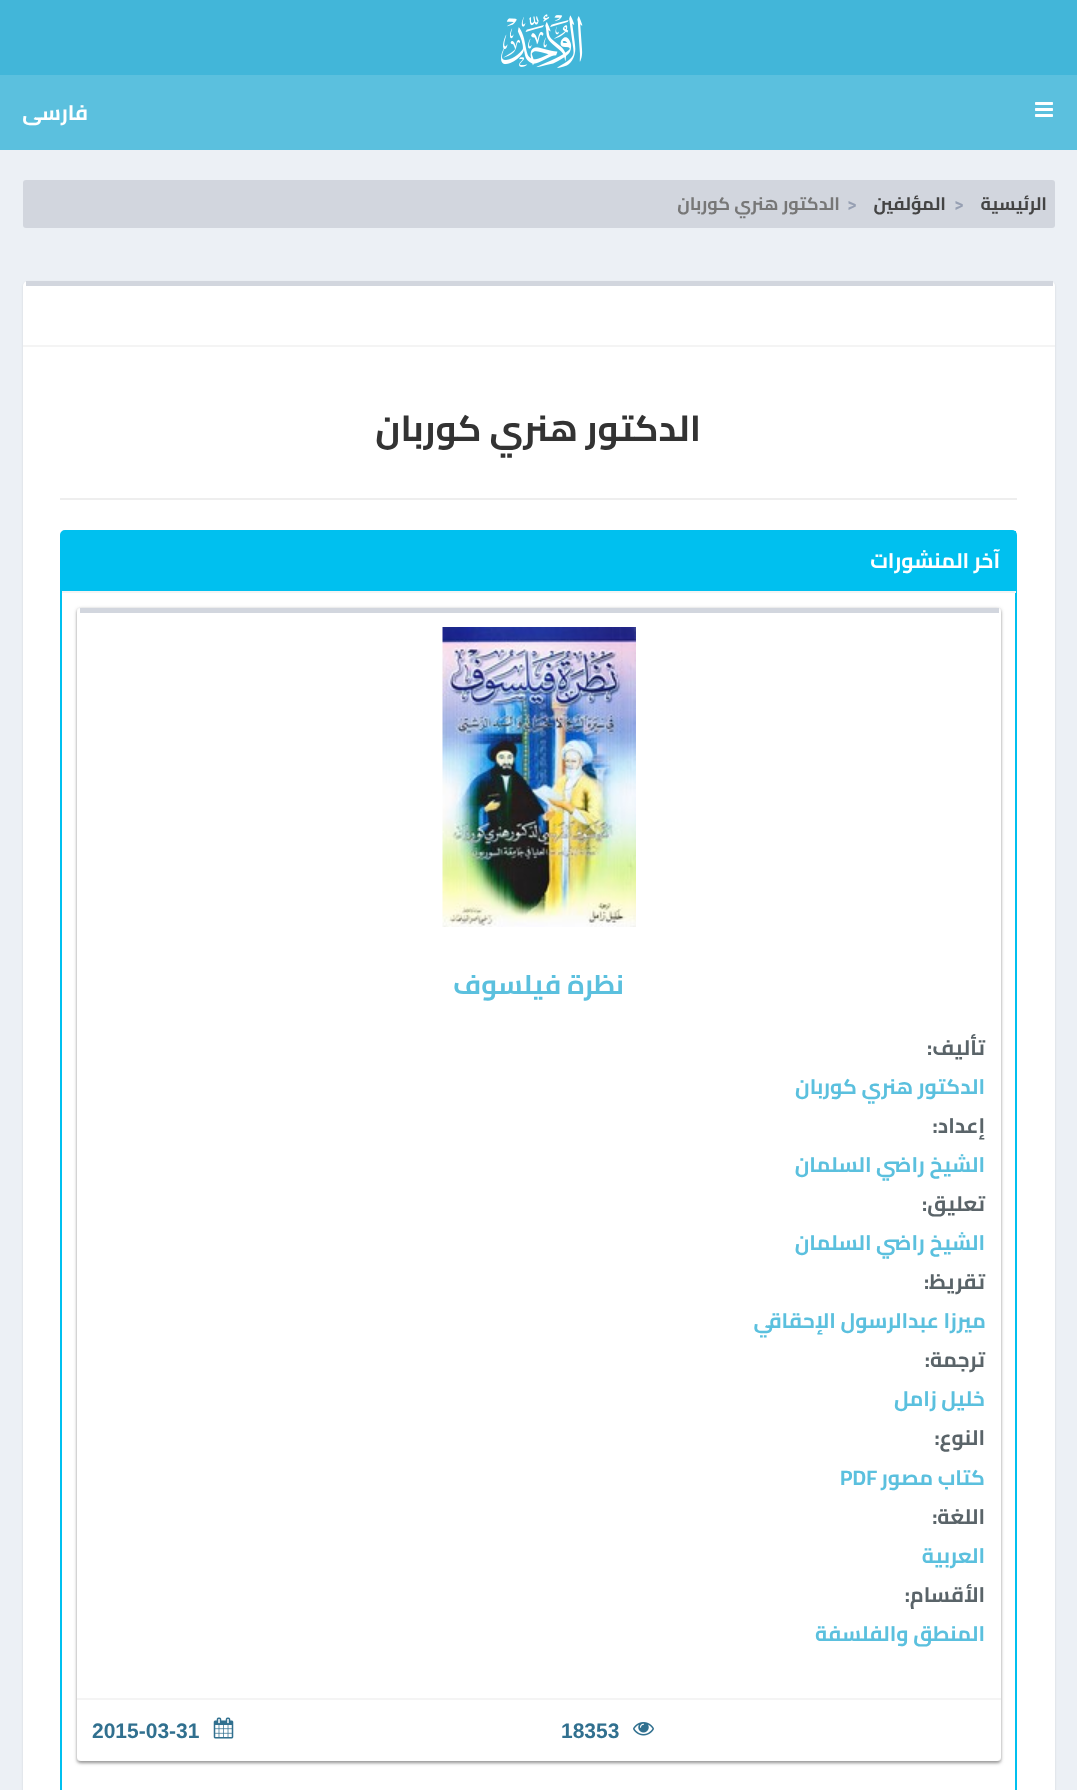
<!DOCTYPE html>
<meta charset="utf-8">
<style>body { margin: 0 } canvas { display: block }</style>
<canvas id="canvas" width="1077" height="1790"></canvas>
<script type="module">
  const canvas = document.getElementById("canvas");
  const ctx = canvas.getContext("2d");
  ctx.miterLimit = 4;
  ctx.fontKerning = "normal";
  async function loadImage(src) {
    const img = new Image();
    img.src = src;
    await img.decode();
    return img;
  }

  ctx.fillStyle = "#ecf0f5";
  ctx.fillRect(0, 0, 1077, 1790);
  ctx.fillStyle = "#42b6d9";
  ctx.fillRect(0, 0, 1077, 75);
  ctx.drawImage(await loadImage("img1.png"), 501, 14, 82, 54);
  ctx.fillStyle = "#5bc0de";
  ctx.fillRect(0, 75, 1077, 75);
  ctx.drawImage(await loadImage("img2.png"), 1035, 102, 18, 15);
  ctx.direction = "rtl";
  ctx.font = "bold 21px Cairo";
  ctx.fillStyle = "#ffffff";
  ctx.fillText("فارسی", 88, 120);
  ctx.fillStyle = "#d2d6de";
  ctx.beginPath();
  ctx.roundRect(23, 180, 1032, 48, 3);
  ctx.fill();
  ctx.font = "bold 18px Cairo";
  ctx.fillStyle = "#444444";
  ctx.fillText("الرئيسية", 1047, 210);
  ctx.direction = "ltr";
  ctx.fillStyle = "#97a0b3";
  ctx.fillText(">", 954, 210);
  ctx.direction = "rtl";
  ctx.fillStyle = "#444444";
  ctx.fillText("المؤلفين", 946, 210);
  ctx.direction = "ltr";
  ctx.fillStyle = "#97a0b3";
  ctx.fillText(">", 847, 210);
  ctx.direction = "rtl";
  ctx.fillStyle = "#777777";
  ctx.fillText("الدكتور هنري كوربان", 840, 210);
  ctx.fillStyle = "rgba(0, 0, 0, 0.1)";
  ctx.filter = "blur(1px)";
  ctx.beginPath();
  ctx.roundRect(23, 282, 1032, 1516, 5);
  ctx.fill();
  ctx.filter = "none";
  ctx.fillStyle = "#ffffff";
  ctx.beginPath();
  ctx.roundRect(23, 281, 1032, 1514, 5);
  ctx.fill();
  ctx.fillStyle = "#d2d6de";
  ctx.fillRect(26, 281, 1027, 5);
  ctx.fillStyle = "#f4f4f4";
  ctx.fillRect(23, 345, 1032, 2);
  ctx.font = "bold 36px Cairo";
  ctx.fillStyle = "#333333";
  ctx.fillText("الدكتور هنري كوربان", 701, 441);
  ctx.fillStyle = "#eeeeee";
  ctx.fillRect(60, 498, 957, 2);
  ctx.beginPath();
  ctx.roundRect(61, 531, 955, 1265, 4);
  ctx.strokeStyle = "#00c0ef";
  ctx.lineWidth = 2;
  ctx.stroke();
  ctx.fillStyle = "#00c0ef";
  ctx.fillRect(62, 531, 954, 60);
  ctx.fillStyle = "#f4f4f4";
  ctx.fillRect(62, 591, 954, 2);
  ctx.font = "bold 21px Cairo";
  ctx.fillStyle = "#ffffff";
  ctx.fillText("آخر المنشورات", 1000, 568);
  ctx.fillStyle = "rgba(0, 0, 0, 0.24)";
  ctx.filter = "blur(1.5px)";
  ctx.beginPath();
  ctx.roundRect(77, 609, 924, 1154, 3);
  ctx.fill();
  ctx.filter = "none";
  ctx.fillStyle = "rgba(0, 0, 0, 0.12)";
  ctx.filter = "blur(2px)";
  ctx.beginPath();
  ctx.roundRect(77, 609, 924, 1154, 3);
  ctx.fill();
  ctx.filter = "none";
  ctx.fillStyle = "#ffffff";
  ctx.beginPath();
  ctx.roundRect(77, 608, 924, 1153, 3);
  ctx.fill();
  ctx.fillStyle = "rgba(0, 0, 0, 0.1)";
  ctx.filter = "blur(1px)";
  ctx.beginPath();
  ctx.roundRect(77, 609, 924, 1154, 5);
  ctx.fill();
  ctx.filter = "none";
  ctx.fillStyle = "#ffffff";
  ctx.beginPath();
  ctx.roundRect(77, 608, 924, 1153, 5);
  ctx.fill();
  ctx.fillStyle = "#d2d6de";
  ctx.fillRect(80, 608, 919, 5);
  ctx.drawImage(await loadImage("img3.png"), 442, 627, 194, 300);
  ctx.font = "bold 27px Cairo";
  ctx.fillStyle = "#5bc0de";
  ctx.fillText("نظرة فيلسوف", 624, 994);
  ctx.font = "bold 21px Cairo";
  ctx.fillStyle = "#5a6469";
  ctx.fillText("تأليف:", 985, 1055);
  ctx.fillStyle = "#5bc0de";
  ctx.fillText("الدكتور هنري كوربان", 985, 1094);
  ctx.fillStyle = "#5a6469";
  ctx.fillText("إعداد:", 985, 1133);
  ctx.fillStyle = "#5bc0de";
  ctx.fillText("الشيخ راضي السلمان", 985, 1172);
  ctx.fillStyle = "#5a6469";
  ctx.fillText("تعليق:", 985, 1211);
  ctx.fillStyle = "#5bc0de";
  ctx.fillText("الشيخ راضي السلمان", 985, 1250);
  ctx.fillStyle = "#5a6469";
  ctx.fillText("تقريظ:", 985, 1289);
  ctx.fillStyle = "#5bc0de";
  ctx.fillText("ميرزا عبدالرسول الإحقاقي", 986, 1328);
  ctx.fillStyle = "#5a6469";
  ctx.fillText("ترجمة:", 985, 1367);
  ctx.fillStyle = "#5bc0de";
  ctx.fillText("خليل زامل", 985, 1406);
  ctx.fillStyle = "#5a6469";
  ctx.fillText("النوع:", 985, 1445);
  ctx.fillStyle = "#5bc0de";
  ctx.fillText("كتاب مصور", 985, 1485);
  ctx.direction = "ltr";
  ctx.fillText("PDF", 840, 1485);
  ctx.direction = "rtl";
  ctx.fillStyle = "#5a6469";
  ctx.fillText("اللغة:", 985, 1524);
  ctx.fillStyle = "#5bc0de";
  ctx.fillText("العربية", 985, 1563);
  ctx.fillStyle = "#5a6469";
  ctx.fillText("الأقسام:", 985, 1602);
  ctx.fillStyle = "#5bc0de";
  ctx.fillText("المنطق والفلسفة", 985, 1641);
  ctx.fillStyle = "#ffffff";
  ctx.beginPath();
  ctx.roundRect(77, 1698, 924, 63, [0, 0, 5, 5]);
  ctx.fill();
  ctx.fillStyle = "#f4f4f4";
  ctx.fillRect(77, 1698, 924, 2);
  ctx.drawImage(await loadImage("img4.png"), 633, 1722, 21, 14);
  ctx.direction = "ltr";
  ctx.font = "bold 21px Liberation Sans";
  ctx.fillStyle = "#31708f";
  ctx.fillText("18353", 561, 1738);
  ctx.drawImage(await loadImage("img5.png"), 213, 1717, 21, 22);
  ctx.fillText("2015-03-31", 92, 1738);
</script>
